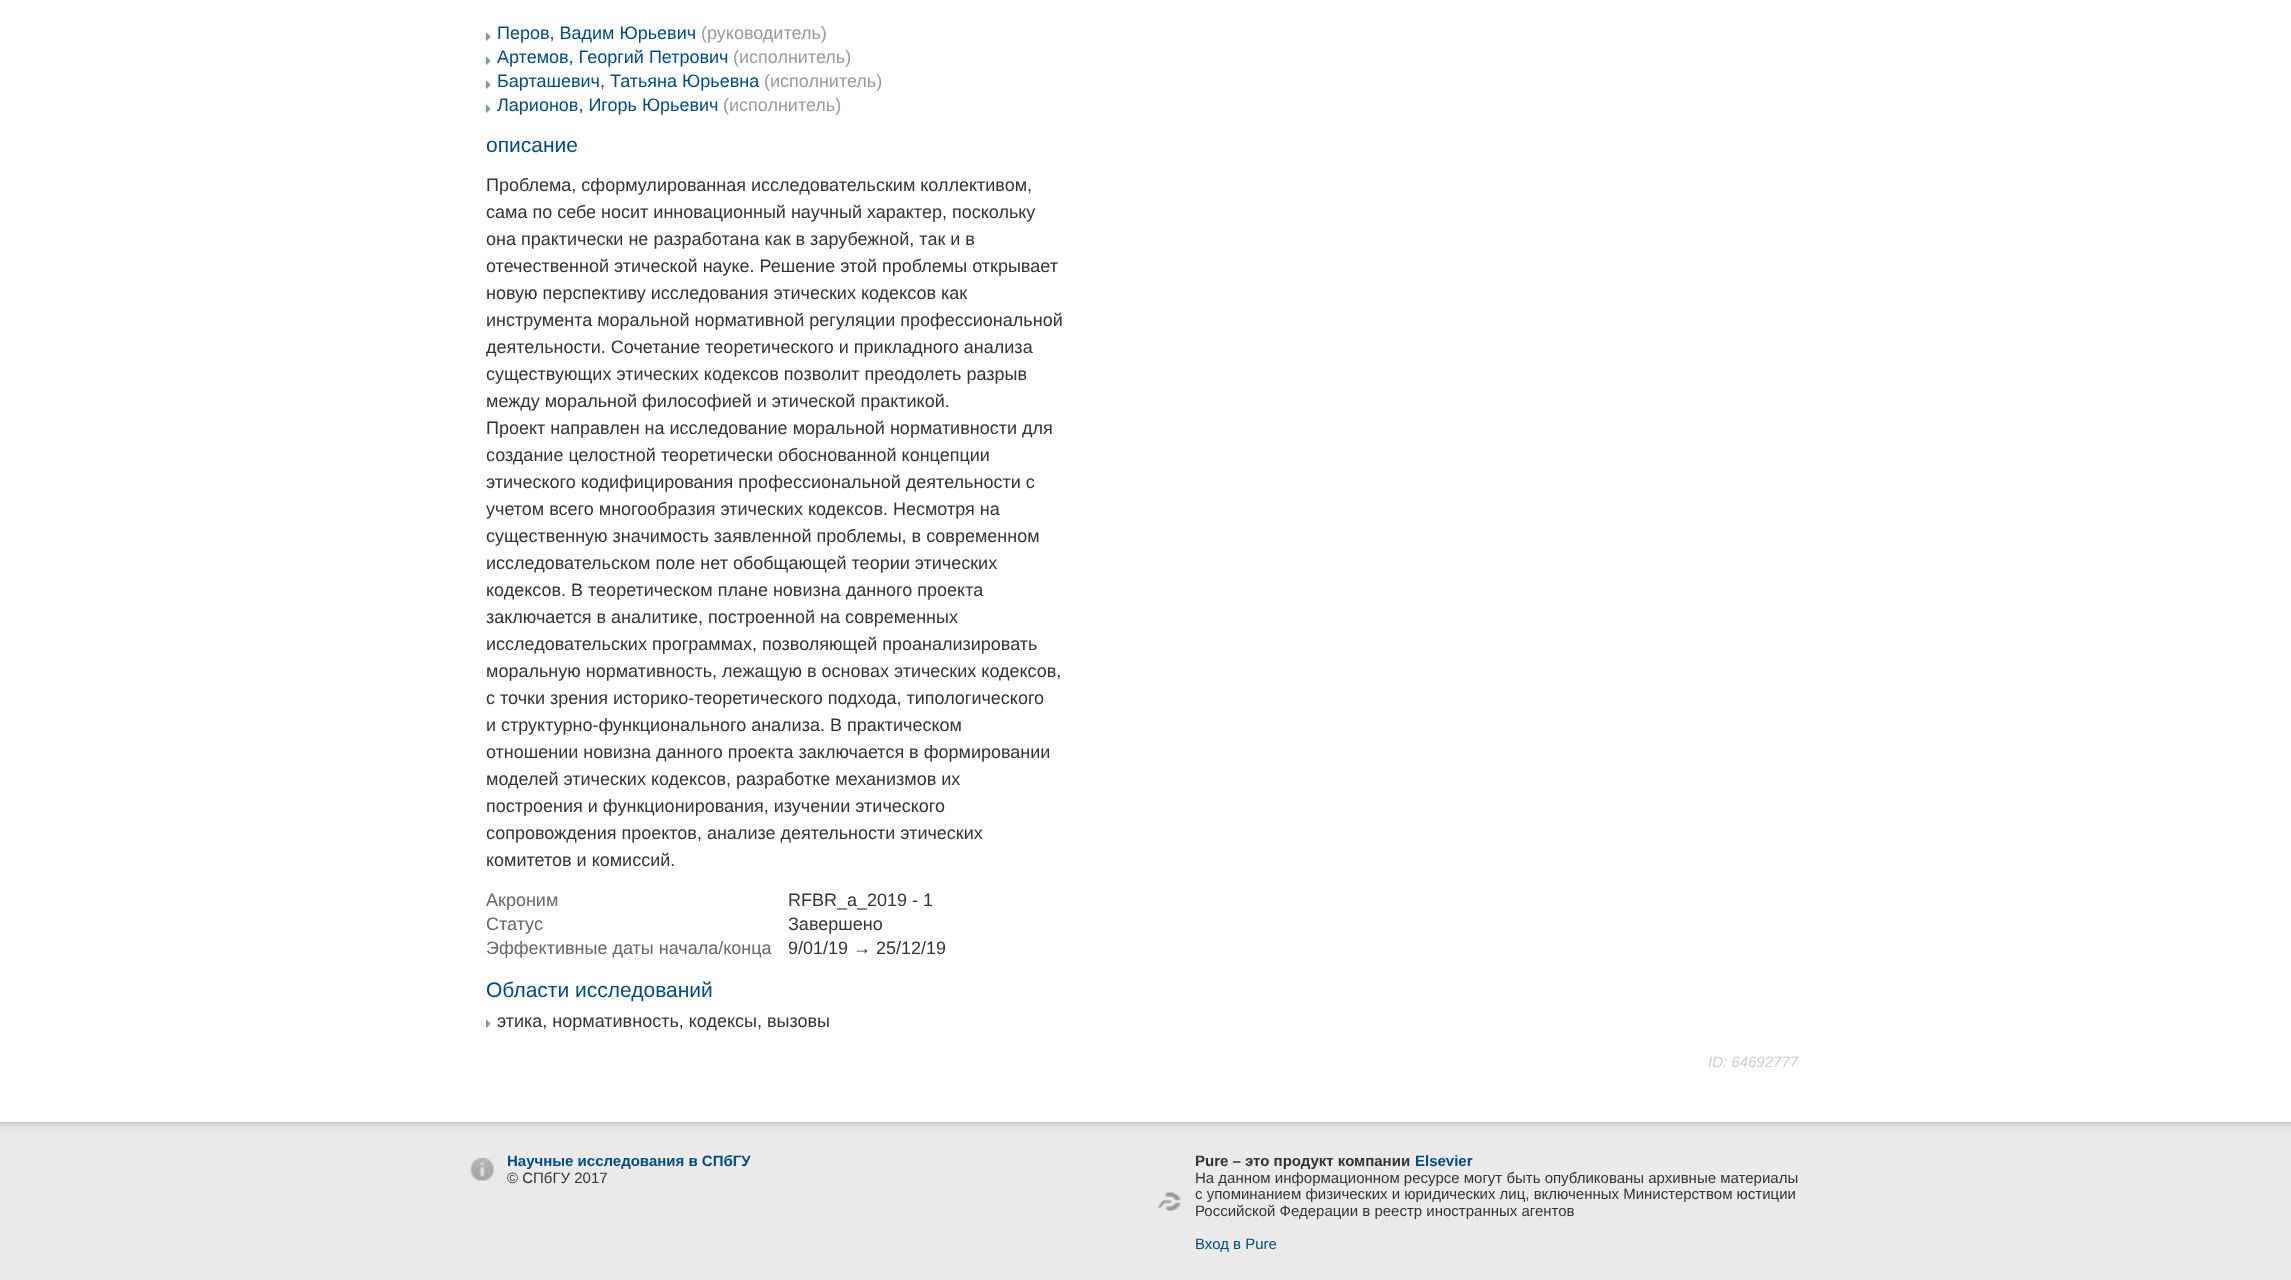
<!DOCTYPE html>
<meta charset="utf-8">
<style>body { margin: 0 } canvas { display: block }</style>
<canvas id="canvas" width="2291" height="1280"></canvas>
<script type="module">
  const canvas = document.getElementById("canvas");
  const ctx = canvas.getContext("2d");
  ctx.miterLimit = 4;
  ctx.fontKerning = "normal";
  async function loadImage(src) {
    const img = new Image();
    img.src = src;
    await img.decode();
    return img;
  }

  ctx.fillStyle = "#eaeaea";
  ctx.fillRect(0, 0, 2291, 1280);
  ctx.fillStyle = "#ffffff";
  ctx.fillRect(0, 0, 2291, 1122);
  ctx.drawImage(await loadImage("img1.png"), 486, 33, 5, 8);
  ctx.font = "18px Liberation Sans";
  ctx.fillStyle = "#004b80";
  ctx.fillText("Перов, Вадим Юрьевич", 497, 39);
  ctx.fillStyle = "#999999";
  ctx.fillText("(руководитель)", 701, 39);
  ctx.drawImage(await loadImage("img1.png"), 486, 57, 5, 8);
  ctx.fillStyle = "#004b80";
  ctx.fillText("Артемов, Георгий Петрович", 497, 63);
  ctx.fillStyle = "#999999";
  ctx.fillText("(исполнитель)", 733, 63);
  ctx.drawImage(await loadImage("img1.png"), 486, 81, 5, 8);
  ctx.fillStyle = "#004b80";
  ctx.fillText("Барташевич, Татьяна Юрьевна", 497, 87);
  ctx.fillStyle = "#999999";
  ctx.fillText("(исполнитель)", 764, 87);
  ctx.drawImage(await loadImage("img1.png"), 486, 105, 5, 8);
  ctx.fillStyle = "#004b80";
  ctx.fillText("Ларионов, Игорь Юрьевич", 497, 111);
  ctx.fillStyle = "#999999";
  ctx.fillText("(исполнитель)", 723, 111);
  ctx.font = "21px Liberation Sans";
  ctx.fillStyle = "#004b80";
  ctx.fillText("описание", 486, 152);
  ctx.font = "18px Liberation Sans";
  ctx.fillStyle = "#333333";
  ctx.fillText("Проблема, сформулированная исследовательским коллективом,", 486, 191);
  ctx.fillText("сама по себе носит инновационный научный характер, поскольку", 486, 218);
  ctx.fillText("она практически не разработана как в зарубежной, так и в", 486, 245);
  ctx.fillText("отечественной этической науке. Решение этой проблемы открывает", 486, 272);
  ctx.fillText("новую перспективу исследования этических кодексов как", 486, 299);
  ctx.fillText("инструмента моральной нормативной регуляции профессиональной", 486, 326);
  ctx.fillText("деятельности. Сочетание теоретического и прикладного анализа", 486, 353);
  ctx.fillText("существующих этических кодексов позволит преодолеть разрыв", 486, 380);
  ctx.fillText("между моральной философией и этической практикой.", 486, 407);
  ctx.fillText("Проект направлен на исследование моральной нормативности для", 486, 434);
  ctx.fillText("создание целостной теоретически обоснованной концепции", 486, 461);
  ctx.fillText("этического кодифицирования профессиональной деятельности с", 486, 488);
  ctx.fillText("учетом всего многообразия этических кодексов. Несмотря на", 486, 515);
  ctx.fillText("существенную значимость заявленной проблемы, в современном", 486, 542);
  ctx.fillText("исследовательском поле нет обобщающей теории этических", 486, 569);
  ctx.fillText("кодексов. В теоретическом плане новизна данного проекта", 486, 596);
  ctx.fillText("заключается в аналитике, построенной на современных", 486, 623);
  ctx.fillText("исследовательских программах, позволяющей проанализировать", 486, 650);
  ctx.fillText("моральную нормативность, лежащую в основах этических кодексов,", 486, 677);
  ctx.fillText("с точки зрения историко-теоретического подхода, типологического", 486, 704);
  ctx.fillText("и структурно-функционального анализа. В практическом", 486, 731);
  ctx.fillText("отношении новизна данного проекта заключается в формировании", 486, 758);
  ctx.fillText("моделей этических кодексов, разработке механизмов их", 486, 785);
  ctx.fillText("построения и функционирования, изучении этического", 486, 812);
  ctx.fillText("сопровождения проектов, анализе деятельности этических", 486, 839);
  ctx.fillText("комитетов и комиссий.", 486, 866);
  ctx.fillStyle = "#666666";
  ctx.fillText("Акроним", 486, 906);
  ctx.fillStyle = "#333333";
  ctx.fillText("RFBR_a_2019 - 1", 788, 906);
  ctx.fillStyle = "#666666";
  ctx.fillText("Статус", 486, 930);
  ctx.fillStyle = "#333333";
  ctx.fillText("Завершено", 788, 930);
  ctx.fillStyle = "#666666";
  ctx.fillText("Эффективные даты начала/конца", 486, 954);
  ctx.fillStyle = "#333333";
  ctx.fillText("9/01/19 → 25/12/19", 788, 954);
  ctx.font = "21px Liberation Sans";
  ctx.fillStyle = "#004b80";
  ctx.fillText("Области исследований", 486, 997);
  ctx.drawImage(await loadImage("img1.png"), 486, 1020, 5, 8);
  ctx.font = "18px Liberation Sans";
  ctx.fillStyle = "#333333";
  ctx.fillText("этика, нормативность, кодексы, вызовы", 497, 1027);
  ctx.font = "italic 15px Liberation Sans";
  ctx.fillStyle = "#cccccc";
  ctx.fillText("ID: 64692777", 1708, 1067);
  ctx.drawImage(await loadImage("img2.png"), 0, 1122, 2291, 9);
  ctx.drawImage(await loadImage("img3.png"), 470, 1158, 24, 23);
  ctx.font = "bold 15px Liberation Sans";
  ctx.fillStyle = "#004b80";
  ctx.fillText("Научные исследования в СПбГУ", 507, 1166);
  ctx.font = "15px Liberation Sans";
  ctx.fillStyle = "#333333";
  ctx.fillText("© СПбГУ 2017", 507, 1183);
  ctx.drawImage(await loadImage("img4.png"), 1158, 1192, 23, 19);
  ctx.font = "bold 15px Liberation Sans";
  ctx.fillText("Pure – это продукт компании", 1195, 1166);
  ctx.fillStyle = "#004b80";
  ctx.fillText("Elsevier", 1415, 1166);
  ctx.font = "15px Liberation Sans";
  ctx.fillStyle = "#333333";
  ctx.fillText("На данном информационном ресурсе могут быть опубликованы архивные материалы", 1195, 1183);
  ctx.fillText("с упоминанием физических и юридических лиц, включенных Министерством юстиции", 1195, 1199);
  ctx.fillText("Российской Федерации в реестр иностранных агентов", 1195, 1216);
  ctx.fillStyle = "#004b80";
  ctx.fillText("Вход в Pure", 1195, 1249);
</script>
